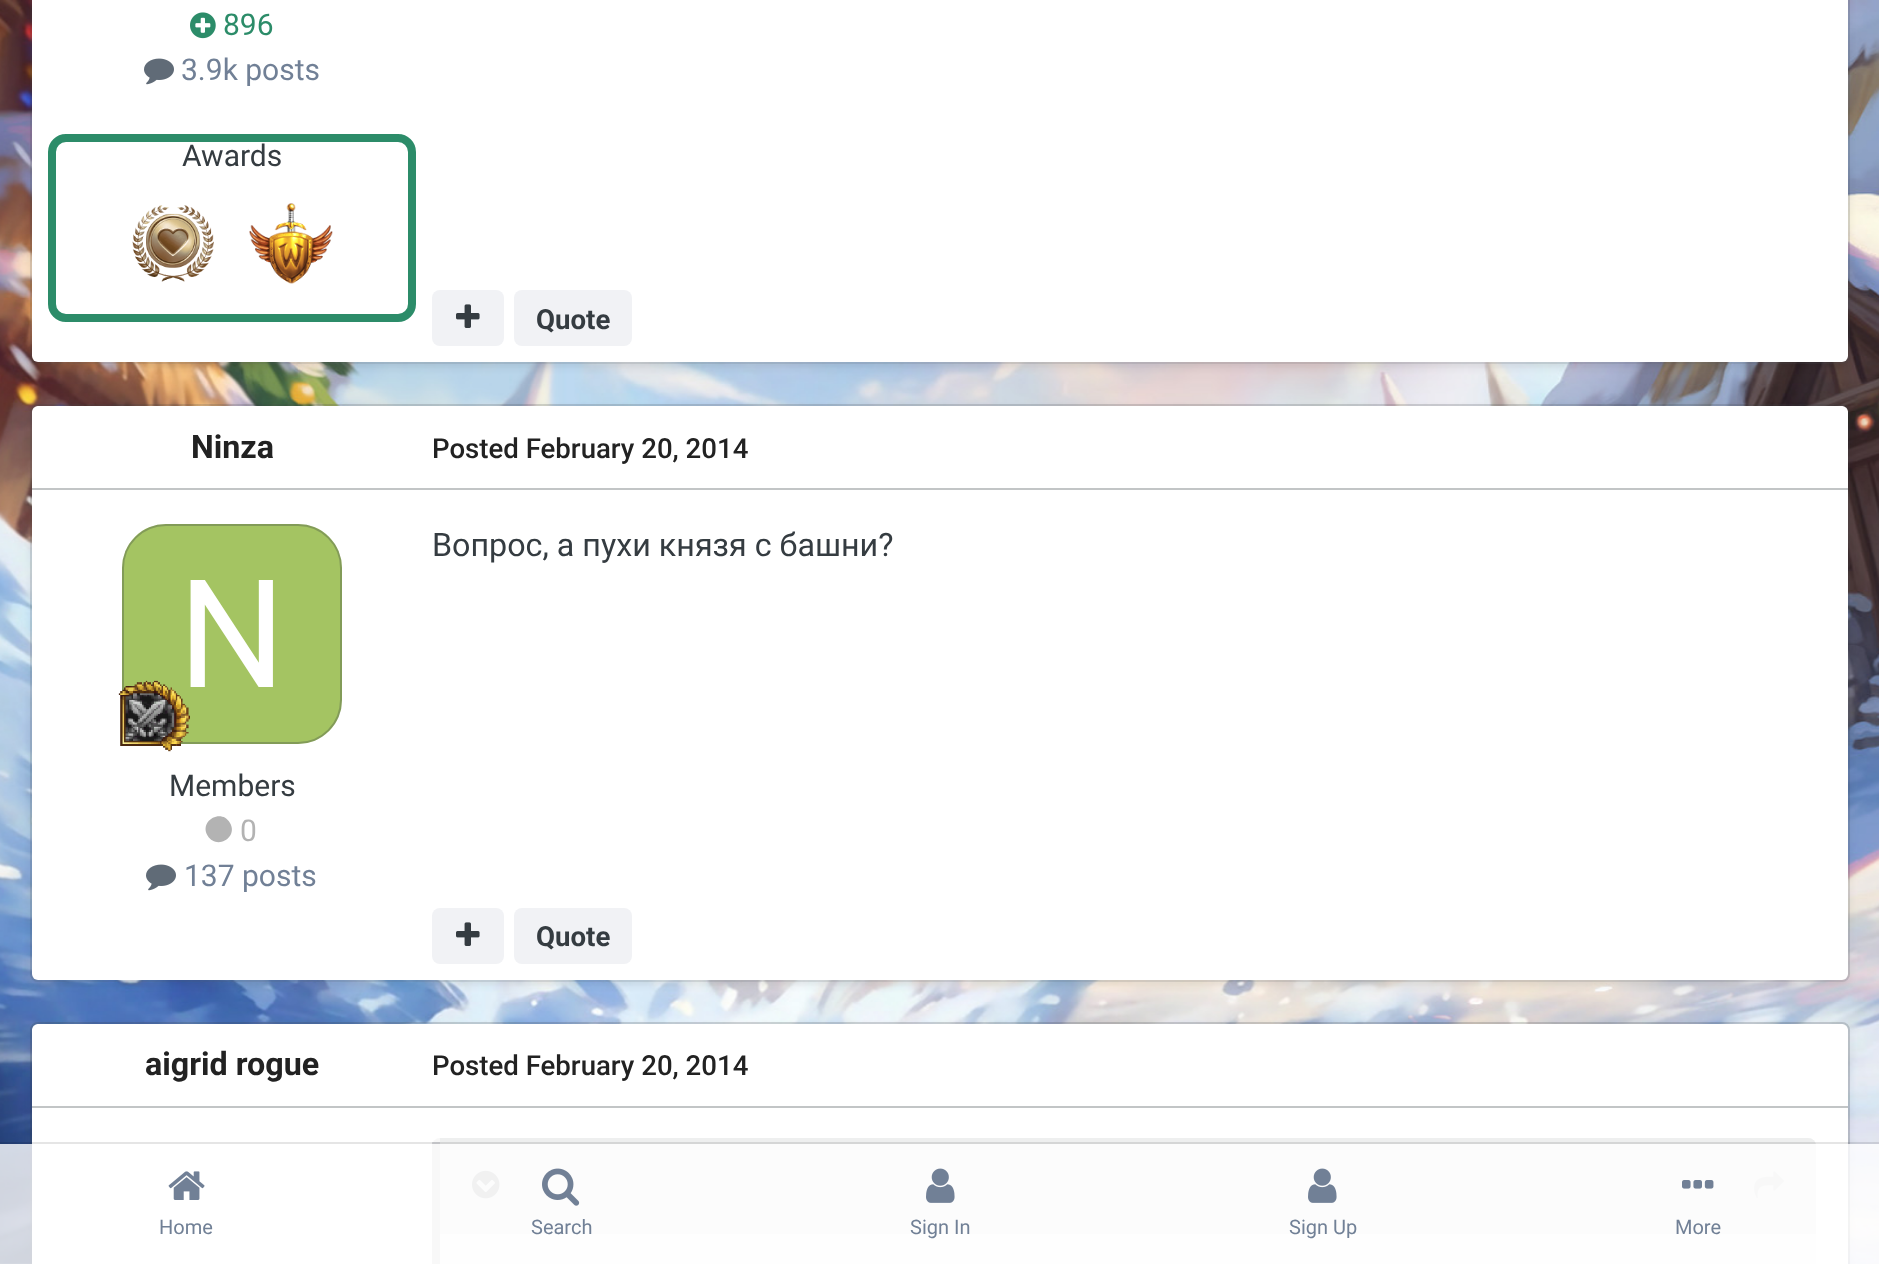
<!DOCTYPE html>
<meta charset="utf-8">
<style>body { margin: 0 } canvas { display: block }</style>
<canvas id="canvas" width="1879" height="1264"></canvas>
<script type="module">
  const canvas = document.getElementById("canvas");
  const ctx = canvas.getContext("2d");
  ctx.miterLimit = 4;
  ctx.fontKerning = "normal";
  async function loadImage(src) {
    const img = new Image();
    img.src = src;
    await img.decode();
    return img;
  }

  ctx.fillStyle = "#ffffff";
  ctx.fillRect(0, 0, 1879, 1264);
  ctx.drawImage(await loadImage("img1.png"), 0, 0, 1879, 1264);
  ctx.save();
  ctx.beginPath();
  ctx.moveTo(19, 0);
  ctx.lineTo(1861, 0);
  ctx.lineTo(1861, 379);
  ctx.lineTo(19, 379);
  ctx.closePath();
  ctx.moveTo(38, -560);
  ctx.lineTo(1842, -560);
  ctx.bezierCurveTo(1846.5, -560, 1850, -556.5, 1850, -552);
  ctx.lineTo(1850, 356);
  ctx.bezierCurveTo(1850, 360.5, 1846.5, 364, 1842, 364);
  ctx.lineTo(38, 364);
  ctx.bezierCurveTo(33.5, 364, 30, 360.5, 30, 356);
  ctx.lineTo(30, -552);
  ctx.bezierCurveTo(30, -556.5, 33.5, -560, 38, -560);
  ctx.closePath();
  ctx.clip("evenodd");
  ctx.fillStyle = "rgba(0, 0, 0, 0.1)";
  ctx.filter = "blur(4px)";
  ctx.beginPath();
  ctx.roundRect(32, -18, 1816, 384, 6);
  ctx.fill();
  ctx.filter = "none";
  ctx.restore();
  ctx.beginPath();
  ctx.roundRect(32, -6, 1816, 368, 6);
  ctx.fill();
  ctx.beginPath();
  ctx.roundRect(31, -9, 1818, 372, 7);
  ctx.strokeStyle = "rgba(53, 60, 65, 0.2)";
  ctx.lineWidth = 2;
  ctx.stroke();
  ctx.drawImage(await loadImage("img2.png"), 190, 12, 26, 27);
  ctx.font = "30px Roboto";
  ctx.fillStyle = "#2c8c69";
  ctx.fillText("896", 223, 35);
  ctx.drawImage(await loadImage("img3.png"), 144, 58, 30, 27);
  ctx.fillStyle = "#718096";
  ctx.fillText("3.9k posts", 181, 80);
  ctx.beginPath();
  ctx.roundRect(52, 138, 360, 180, 14);
  ctx.strokeStyle = "#2c8c69";
  ctx.lineWidth = 8;
  ctx.stroke();
  ctx.fillStyle = "#353c41";
  ctx.fillText("Awards", 182, 166);
  ctx.drawImage(await loadImage("img4.png"), 132, 205, 82, 77);
  ctx.drawImage(await loadImage("img5.png"), 249, 203, 84, 81);
  ctx.fillStyle = "#f1f2f5";
  ctx.beginPath();
  ctx.roundRect(432, 290, 72, 56, 8);
  ctx.fill();
  ctx.drawImage(await loadImage("img6.png"), 456, 304, 24, 24);
  ctx.beginPath();
  ctx.roundRect(514, 290, 118, 56, 8);
  ctx.fill();
  ctx.font = "bold 27.6px Roboto";
  ctx.fillStyle = "#353c41";
  ctx.fillText("Quote", 536, 329);
  ctx.save();
  ctx.beginPath();
  ctx.moveTo(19, 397);
  ctx.lineTo(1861, 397);
  ctx.lineTo(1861, 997);
  ctx.lineTo(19, 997);
  ctx.closePath();
  ctx.moveTo(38, 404);
  ctx.lineTo(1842, 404);
  ctx.bezierCurveTo(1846.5, 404, 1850, 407.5, 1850, 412);
  ctx.lineTo(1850, 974);
  ctx.bezierCurveTo(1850, 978.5, 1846.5, 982, 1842, 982);
  ctx.lineTo(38, 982);
  ctx.bezierCurveTo(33.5, 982, 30, 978.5, 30, 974);
  ctx.lineTo(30, 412);
  ctx.bezierCurveTo(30, 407.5, 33.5, 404, 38, 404);
  ctx.closePath();
  ctx.clip("evenodd");
  ctx.fillStyle = "rgba(0, 0, 0, 0.1)";
  ctx.filter = "blur(4px)";
  ctx.beginPath();
  ctx.roundRect(32, 410, 1816, 574, 6);
  ctx.fill();
  ctx.filter = "none";
  ctx.restore();
  ctx.fillStyle = "#ffffff";
  ctx.beginPath();
  ctx.roundRect(32, 406, 1816, 574, 6);
  ctx.fill();
  ctx.beginPath();
  ctx.roundRect(31, 405, 1818, 576, 7);
  ctx.strokeStyle = "rgba(53, 60, 65, 0.2)";
  ctx.lineWidth = 2;
  ctx.stroke();
  ctx.beginPath();
  ctx.roundRect(32, 406, 1816, 84, [8, 8, 0, 0]);
  ctx.fill();
  ctx.fillStyle = "#c2c5c6";
  ctx.fillRect(32, 488, 1816, 2);
  ctx.font = "bold 32.25px Roboto";
  ctx.fillStyle = "#222222";
  ctx.fillText("Ninza", 191, 458);
  ctx.drawImage(await loadImage("img7.png"), 122, 524, 220, 220);
  ctx.beginPath();
  ctx.roundRect(123, 525, 218, 218, [43, 43, 43, 15]);
  ctx.strokeStyle = "rgba(53, 60, 65, 0.3)";
  ctx.stroke();
  ctx.drawImage(await loadImage("img8.png"), 118, 680, 72, 72);
  ctx.font = "30px Roboto";
  ctx.fillStyle = "#353c41";
  ctx.fillText("Members", 169, 796);
  ctx.fillStyle = "#b3b3b3";
  ctx.beginPath();
  ctx.moveTo(230, 823);
  ctx.bezierCurveTo(238.5, 837.5, 216.5, 850.5, 207.5, 835.5);
  ctx.bezierCurveTo(199, 821, 221.5, 808, 230, 823);
  ctx.closePath();
  ctx.fill();
  ctx.fillText("0", 240, 841);
  ctx.drawImage(await loadImage("img3.png"), 146, 864, 30, 27);
  ctx.fillStyle = "#718096";
  ctx.fillText("137 posts", 184, 886);
  ctx.font = "500 27.6px Roboto";
  ctx.fillStyle = "#222222";
  ctx.fillText("Posted February 20, 2014", 432, 458);
  ctx.font = "32.25px Roboto";
  ctx.fillStyle = "#353c41";
  ctx.fillText("Вопрос, а пухи князя с башни?", 432, 556);
  ctx.fillStyle = "#f1f2f5";
  ctx.beginPath();
  ctx.roundRect(432, 908, 72, 56, 8);
  ctx.fill();
  ctx.drawImage(await loadImage("img6.png"), 456, 922, 24, 24);
  ctx.beginPath();
  ctx.roundRect(514, 908, 118, 56, 8);
  ctx.fill();
  ctx.font = "bold 27.6px Roboto";
  ctx.fillStyle = "#353c41";
  ctx.fillText("Quote", 536, 946);
  ctx.fillStyle = "rgba(0, 0, 0, 0.1)";
  ctx.filter = "blur(4px)";
  ctx.beginPath();
  ctx.roundRect(32, 1028, 1816, 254, 6);
  ctx.fill();
  ctx.filter = "none";
  ctx.fillStyle = "#ffffff";
  ctx.beginPath();
  ctx.roundRect(32, 1024, 1816, 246, 6);
  ctx.fill();
  ctx.beginPath();
  ctx.roundRect(31, 1023, 1818, 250, 7);
  ctx.strokeStyle = "rgba(53, 60, 65, 0.2)";
  ctx.stroke();
  ctx.beginPath();
  ctx.roundRect(32, 1024, 1816, 84, [8, 8, 0, 0]);
  ctx.fill();
  ctx.fillStyle = "#c2c5c6";
  ctx.fillRect(32, 1106, 1816, 2);
  ctx.font = "bold 32.25px Roboto";
  ctx.fillStyle = "#222222";
  ctx.fillText("aigrid rogue", 145, 1075);
  ctx.font = "500 27.6px Roboto";
  ctx.fillText("Posted February 20, 2014", 432, 1075);
  ctx.fillStyle = "#f7f7f7";
  ctx.beginPath();
  ctx.roundRect(432, 1138, 1384, 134, 8);
  ctx.fill();
  ctx.fillStyle = "rgba(45, 55, 72, 0.15)";
  ctx.fillRect(432, 1142, 8, 122);
  ctx.fillStyle = "#eeefef";
  ctx.beginPath();
  ctx.roundRect(440, 1138, 1376, 96, [0, 8, 0, 0]);
  ctx.fill();
  ctx.drawImage(await loadImage("img9.png"), 472, 1170, 28, 29);
  ctx.drawImage(await loadImage("img10.png"), 1754, 1171, 30, 27);
  ctx.fillStyle = "rgba(0, 0, 0, 0.1)";
  ctx.fillRect(0, 1142, 1879, 2);
  ctx.fillStyle = "rgba(255, 255, 255, 0.8)";
  ctx.fillRect(0, 1144, 1879, 120);
  ctx.drawImage(await loadImage("img11.png"), 168, 1171, 37, 29);
  ctx.font = "20px Roboto";
  ctx.fillStyle = "#718096";
  ctx.fillText("Home", 159, 1234);
  ctx.drawImage(await loadImage("img12.png"), 542, 1168, 38, 38);
  ctx.fillText("Search", 531, 1234);
  ctx.drawImage(await loadImage("img13.png"), 926, 1168, 29, 35);
  ctx.fillText("Sign In", 910, 1234);
  ctx.drawImage(await loadImage("img14.png"), 1308, 1168, 29, 35);
  ctx.fillText("Sign Up", 1289, 1234);
  ctx.drawImage(await loadImage("img15.png"), 1682, 1180, 32, 9);
  ctx.fillText("More", 1675, 1234);
</script>
